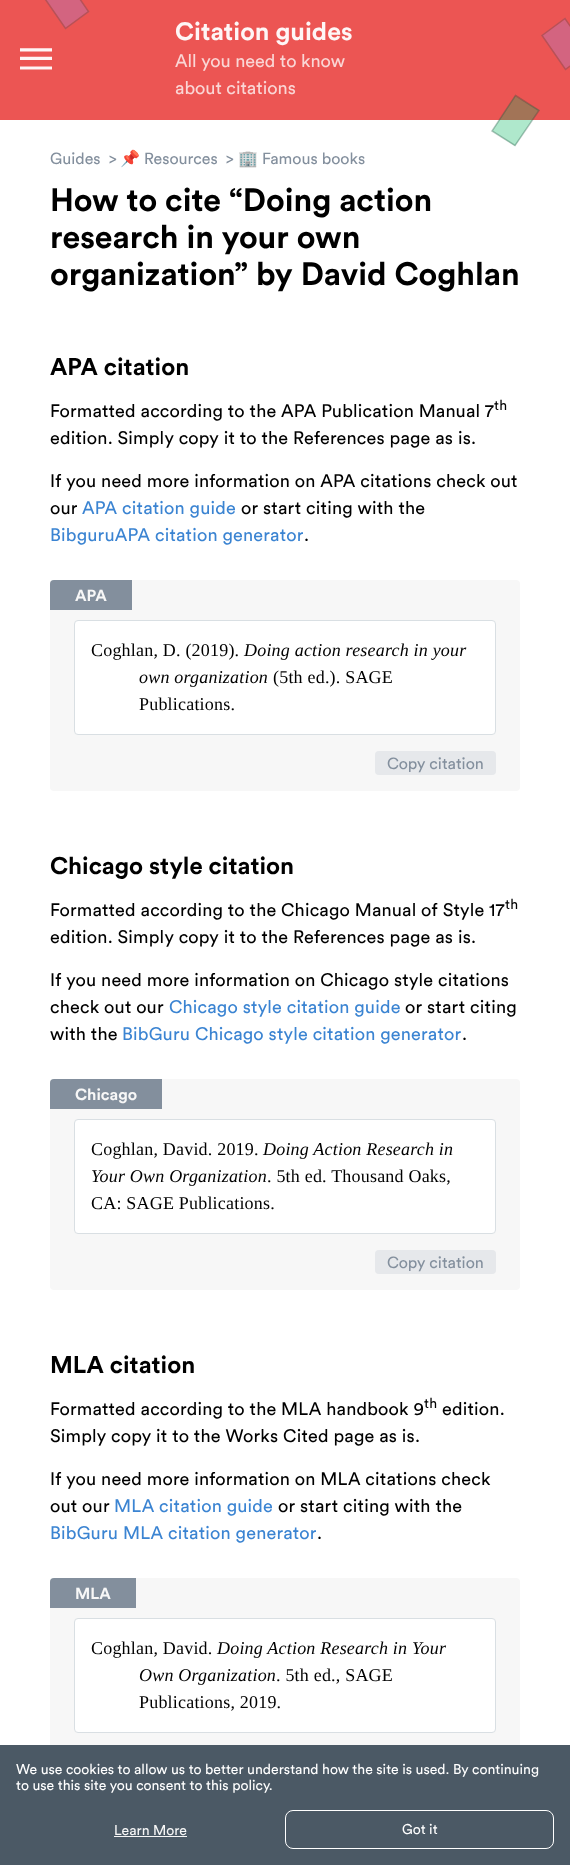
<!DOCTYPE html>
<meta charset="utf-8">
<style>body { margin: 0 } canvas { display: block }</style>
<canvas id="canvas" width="570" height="1865"></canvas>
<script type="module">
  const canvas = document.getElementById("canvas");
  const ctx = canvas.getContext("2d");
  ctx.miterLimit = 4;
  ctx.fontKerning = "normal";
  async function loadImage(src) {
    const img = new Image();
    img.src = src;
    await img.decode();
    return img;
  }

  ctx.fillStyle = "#ffffff";
  ctx.fillRect(0, 0, 570, 1865);
  ctx.fillStyle = "#ec5553";
  ctx.fillRect(0, 0, 570, 120);
  ctx.fillStyle = "#d36480";
  ctx.beginPath();
  ctx.moveTo(42, -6);
  ctx.lineTo(65, -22);
  ctx.lineTo(89, 12);
  ctx.lineTo(65, 28);
  ctx.closePath();
  ctx.fill();
  ctx.beginPath();
  ctx.moveTo(42, -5.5);
  ctx.lineTo(65, -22.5);
  ctx.lineTo(88.5, 11.5);
  ctx.lineTo(65.5, 28.5);
  ctx.closePath();
  ctx.strokeStyle = "#b85157";
  ctx.lineWidth = 1.5;
  ctx.stroke();
  ctx.drawImage(await loadImage("img1.png"), 20, 48, 32, 22);
  ctx.font = "bold 25px Circular";
  ctx.fillStyle = "#fef6f6";
  ctx.fillText("Citation guides", 175, 40);
  ctx.font = "18px Circular";
  ctx.fillStyle = "#fad6d5";
  ctx.fillText("All you need to know", 175, 67);
  ctx.fillText("about citations", 175, 94);
  ctx.fillStyle = "#d36480";
  ctx.beginPath();
  ctx.moveTo(542, 35);
  ctx.lineTo(565, 19);
  ctx.lineTo(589, 53);
  ctx.lineTo(565, 69);
  ctx.closePath();
  ctx.fill();
  ctx.beginPath();
  ctx.moveTo(542, 35.5);
  ctx.lineTo(565, 18.5);
  ctx.lineTo(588.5, 52.5);
  ctx.lineTo(565.5, 69.5);
  ctx.closePath();
  ctx.stroke();
  ctx.fillStyle = "rgba(7, 184, 97, 0.32)";
  ctx.beginPath();
  ctx.moveTo(515, 96);
  ctx.lineTo(539, 110);
  ctx.lineTo(515, 146);
  ctx.lineTo(492, 131);
  ctx.closePath();
  ctx.fill();
  ctx.beginPath();
  ctx.moveTo(515.5, 95.5);
  ctx.lineTo(539, 110.5);
  ctx.lineTo(515, 145.5);
  ctx.lineTo(492, 131);
  ctx.closePath();
  ctx.strokeStyle = "rgba(29, 79, 58, 0.32)";
  ctx.stroke();
  ctx.font = "16px Circular";
  ctx.fillStyle = "#838f9d";
  ctx.fillText("Guides", 50, 164);
  ctx.fillText(">", 109, 164);
  ctx.font = "16px Noto Color Emoji";
  ctx.fillText("📌", 120, 164);
  ctx.font = "16px Circular";
  ctx.fillText("Resources", 144, 164);
  ctx.fillText(">", 226, 164);
  ctx.font = "16px Noto Color Emoji";
  ctx.fillText("🏢", 238, 164);
  ctx.font = "16px Circular";
  ctx.fillText("Famous books", 262, 164);
  ctx.font = "bold 32px Circular";
  ctx.fillStyle = "#000000";
  ctx.fillText("How to cite “Doing action", 50, 211);
  ctx.fillText("research in your own", 50, 248);
  ctx.fillText("organization” by David Coghlan", 50, 285);
  ctx.font = "bold 24px Circular";
  ctx.fillText("APA citation", 50, 375);
  ctx.letterSpacing = "0.2px";
  ctx.font = "18px Circular";
  ctx.fillText("Formatted according to the APA Publication Manual 7", 50, 417);
  ctx.font = "14px Circular";
  ctx.fillText("th", 494, 410);
  ctx.font = "18px Circular";
  ctx.fillText("edition. Simply copy it to the References page as is.", 50, 444);
  ctx.fillText("If you need more information on APA citations check out", 50, 487);
  ctx.fillText("our", 50, 514);
  ctx.fillStyle = "#3b84d2";
  ctx.fillText("APA citation guide", 82, 514);
  ctx.fillStyle = "#000000";
  ctx.fillText("or start citing with the", 241, 514);
  ctx.fillStyle = "#3b84d2";
  ctx.fillText("BibguruAPA citation generator", 50, 541);
  ctx.fillStyle = "#000000";
  ctx.fillText(".", 304, 541);
  ctx.fillStyle = "#f7f7f7";
  ctx.beginPath();
  ctx.roundRect(50, 580, 470, 211, 4);
  ctx.fill();
  ctx.fillStyle = "#838f9d";
  ctx.beginPath();
  ctx.roundRect(50, 580, 82, 30, [4, 0, 0, 0]);
  ctx.fill();
  ctx.letterSpacing = "0px";
  ctx.font = "bold 16px Circular";
  ctx.fillStyle = "#f7f7f7";
  ctx.fillText("APA", 75, 601);
  ctx.fillStyle = "#ffffff";
  ctx.beginPath();
  ctx.roundRect(74.5, 620.5, 421, 114, 3.5);
  ctx.fill();
  ctx.strokeStyle = "#d9dfe3";
  ctx.lineWidth = 1;
  ctx.stroke();
  ctx.letterSpacing = "0.2px";
  ctx.font = "18px Liberation Serif";
  ctx.fillStyle = "#000000";
  ctx.fillText("Coghlan, D. (2019).", 91, 656);
  ctx.font = "italic 18px Liberation Serif";
  ctx.fillText("Doing action research in your", 244, 656);
  ctx.fillText("own organization", 139, 683);
  ctx.font = "18px Liberation Serif";
  ctx.fillText("(5th ed.). SAGE", 273, 683);
  ctx.fillText("Publications.", 139, 710);
  ctx.fillStyle = "#e6e8eb";
  ctx.beginPath();
  ctx.roundRect(375, 751, 121, 24, 4);
  ctx.fill();
  ctx.letterSpacing = "0px";
  ctx.font = "16px Circular";
  ctx.fillStyle = "#838f9d";
  ctx.fillText("Copy citation", 387, 769);
  ctx.font = "bold 24px Circular";
  ctx.fillStyle = "#000000";
  ctx.fillText("Chicago style citation", 50, 874);
  ctx.letterSpacing = "0.2px";
  ctx.font = "18px Circular";
  ctx.fillText("Formatted according to the Chicago Manual of Style 17", 50, 916);
  ctx.font = "14px Circular";
  ctx.fillText("th", 505, 909);
  ctx.font = "18px Circular";
  ctx.fillText("edition. Simply copy it to the References page as is.", 50, 943);
  ctx.fillText("If you need more information on Chicago style citations", 50, 986);
  ctx.fillText("check out our", 50, 1013);
  ctx.fillStyle = "#3b84d2";
  ctx.fillText("Chicago style citation guide", 169, 1013);
  ctx.fillStyle = "#000000";
  ctx.fillText("or start citing", 405, 1013);
  ctx.fillText("with the", 50, 1040);
  ctx.fillStyle = "#3b84d2";
  ctx.fillText("BibGuru Chicago style citation generator", 122, 1040);
  ctx.fillStyle = "#000000";
  ctx.fillText(".", 462, 1040);
  ctx.fillStyle = "#f7f7f7";
  ctx.beginPath();
  ctx.roundRect(50, 1079, 470, 211, 4);
  ctx.fill();
  ctx.fillStyle = "#838f9d";
  ctx.beginPath();
  ctx.roundRect(50, 1079, 112, 30, [4, 0, 0, 0]);
  ctx.fill();
  ctx.letterSpacing = "0px";
  ctx.font = "bold 16px Circular";
  ctx.fillStyle = "#f7f7f7";
  ctx.fillText("Chicago", 75, 1100);
  ctx.fillStyle = "#ffffff";
  ctx.beginPath();
  ctx.roundRect(74.5, 1119.5, 421, 114, 3.5);
  ctx.fill();
  ctx.stroke();
  ctx.letterSpacing = "0.2px";
  ctx.font = "18px Liberation Serif";
  ctx.fillStyle = "#000000";
  ctx.fillText("Coghlan, David. 2019.", 91, 1155);
  ctx.font = "italic 18px Liberation Serif";
  ctx.fillText("Doing Action Research in", 263, 1155);
  ctx.fillText("Your Own Organization", 91, 1182);
  ctx.font = "18px Liberation Serif";
  ctx.fillText(". 5th ed. Thousand Oaks,", 267, 1182);
  ctx.fillText("CA: SAGE Publications.", 91, 1209);
  ctx.fillStyle = "#e6e8eb";
  ctx.beginPath();
  ctx.roundRect(375, 1250, 121, 24, 4);
  ctx.fill();
  ctx.letterSpacing = "0px";
  ctx.font = "16px Circular";
  ctx.fillStyle = "#838f9d";
  ctx.fillText("Copy citation", 387, 1268);
  ctx.font = "bold 24px Circular";
  ctx.fillStyle = "#000000";
  ctx.fillText("MLA citation", 50, 1373);
  ctx.letterSpacing = "0.2px";
  ctx.font = "18px Circular";
  ctx.fillText("Formatted according to the MLA handbook 9", 50, 1415);
  ctx.font = "14px Circular";
  ctx.fillText("th", 424, 1408);
  ctx.font = "18px Circular";
  ctx.fillText("edition.", 442, 1415);
  ctx.fillText("Simply copy it to the Works Cited page as is.", 50, 1442);
  ctx.fillText("If you need more information on MLA citations check", 50, 1485);
  ctx.fillText("out our", 50, 1512);
  ctx.fillStyle = "#3b84d2";
  ctx.fillText("MLA citation guide", 114, 1512);
  ctx.fillStyle = "#000000";
  ctx.fillText("or start citing with the", 278, 1512);
  ctx.fillStyle = "#3b84d2";
  ctx.fillText("BibGuru MLA citation generator", 50, 1539);
  ctx.fillStyle = "#000000";
  ctx.fillText(".", 317, 1539);
  ctx.fillStyle = "#f7f7f7";
  ctx.beginPath();
  ctx.roundRect(50, 1578, 470, 211, 4);
  ctx.fill();
  ctx.fillStyle = "#838f9d";
  ctx.beginPath();
  ctx.roundRect(50, 1578, 86, 30, [4, 0, 0, 0]);
  ctx.fill();
  ctx.letterSpacing = "0px";
  ctx.font = "bold 16px Circular";
  ctx.fillStyle = "#f7f7f7";
  ctx.fillText("MLA", 75, 1599);
  ctx.fillStyle = "#ffffff";
  ctx.beginPath();
  ctx.roundRect(74.5, 1618.5, 421, 114, 3.5);
  ctx.fill();
  ctx.stroke();
  ctx.letterSpacing = "0.2px";
  ctx.font = "18px Liberation Serif";
  ctx.fillStyle = "#000000";
  ctx.fillText("Coghlan, David.", 91, 1654);
  ctx.font = "italic 18px Liberation Serif";
  ctx.fillText("Doing Action Research in Your", 217, 1654);
  ctx.fillText("Own Organization", 139, 1681);
  ctx.font = "18px Liberation Serif";
  ctx.fillText(". 5th ed., SAGE", 276, 1681);
  ctx.fillText("Publications, 2019.", 139, 1708);
  ctx.fillStyle = "#4b5965";
  ctx.fillRect(0, 1745, 570, 120);
  ctx.letterSpacing = "0px";
  ctx.font = "14px Circular";
  ctx.fillStyle = "#ffffff";
  ctx.fillText("We use cookies to allow us to better understand how the site is used. By continuing", 16, 1774);
  ctx.fillText("to use this site you consent to this policy.", 16, 1790);
  ctx.fillStyle = "#f7f7f7";
  ctx.fillText("Learn More", 114, 1835);
  ctx.fillRect(114, 1836, 73, 1);
  ctx.beginPath();
  ctx.roundRect(285.5, 1810.5, 268, 38, 7.5);
  ctx.strokeStyle = "#ffffff";
  ctx.stroke();
  ctx.fillStyle = "#ffffff";
  ctx.fillText("Got it", 402, 1834);
</script>
